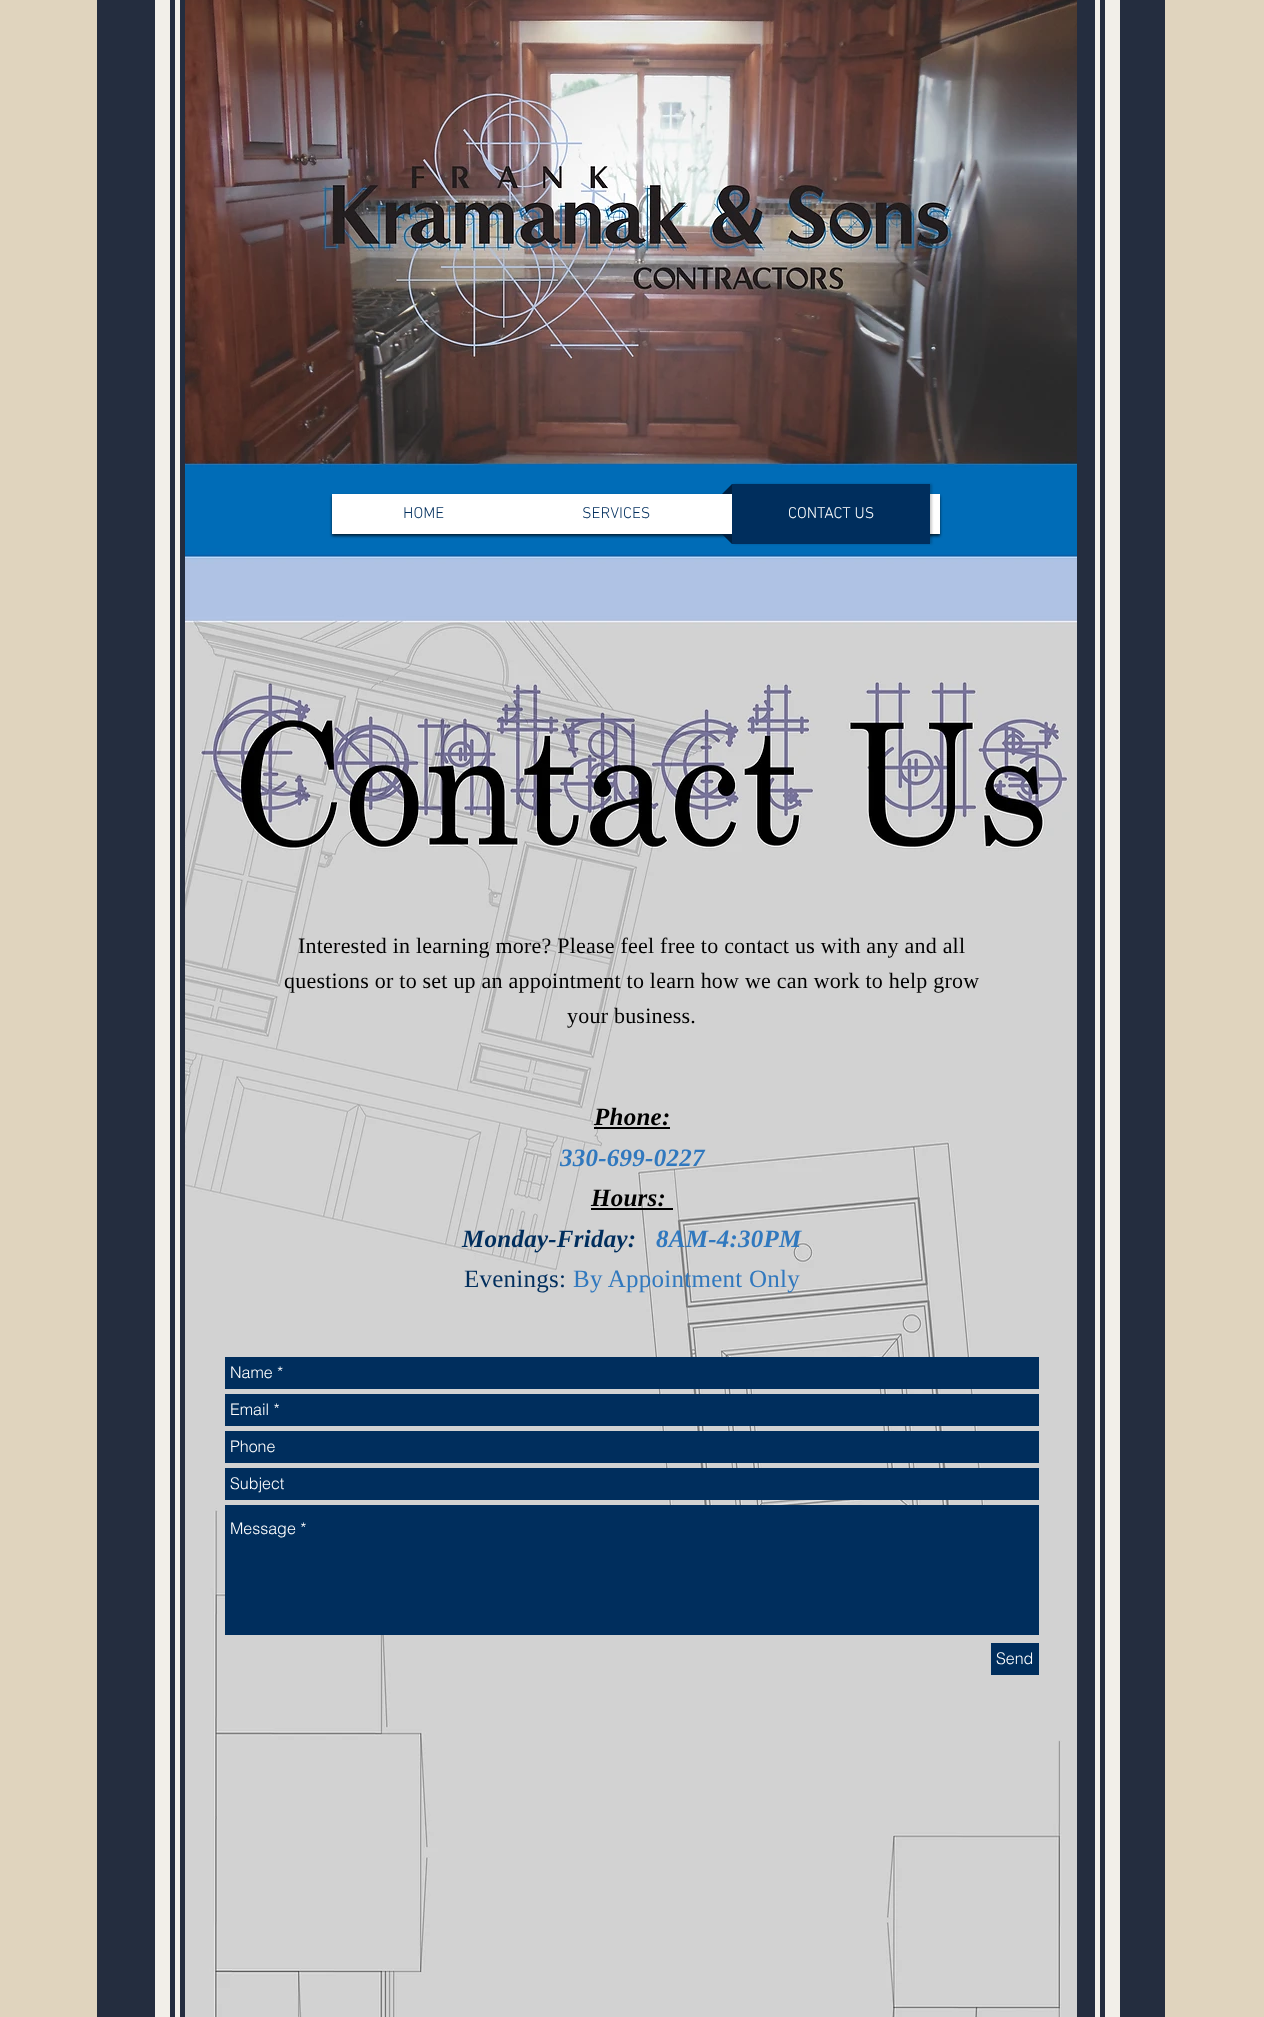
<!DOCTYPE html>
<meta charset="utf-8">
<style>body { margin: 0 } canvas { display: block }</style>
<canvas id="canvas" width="1264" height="2017"></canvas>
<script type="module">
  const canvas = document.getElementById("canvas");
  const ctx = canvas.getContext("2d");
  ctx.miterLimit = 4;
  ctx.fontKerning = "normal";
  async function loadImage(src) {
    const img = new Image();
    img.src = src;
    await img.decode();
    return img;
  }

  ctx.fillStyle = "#e0d4be";
  ctx.fillRect(0, 0, 1264, 2017);
  ctx.fillStyle = "#242d3f";
  ctx.fillRect(97, 0, 88, 2017);
  ctx.fillStyle = "#f2efe9";
  ctx.fillRect(175, 0, 5, 2017);
  ctx.fillRect(155, 0, 15, 2017);
  ctx.fillStyle = "#242d3f";
  ctx.fillRect(1077, 0, 88, 2017);
  ctx.fillStyle = "#f2efe9";
  ctx.fillRect(1095, 0, 5, 2017);
  ctx.fillRect(1105, 0, 15, 2017);
  ctx.drawImage(await loadImage("img1.png"), 185, 0, 892, 2017);
  ctx.fillStyle = "rgba(0, 0, 0, 0.7)";
  ctx.filter = "blur(1.5px)";
  ctx.beginPath();
  ctx.rect(332, 496, 608, 40);
  ctx.fill();
  ctx.filter = "none";
  ctx.fillStyle = "#ffffff";
  ctx.fillRect(332, 494, 608, 40);
  ctx.font = "300 16px 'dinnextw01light'";
  ctx.fillStyle = "#002e5d";
  ctx.fillText("HOME", 403, 518);
  ctx.fillText("SERVICES", 582, 518);
  ctx.fillStyle = "rgba(0, 0, 0, 0.2)";
  ctx.filter = "blur(1px)";
  ctx.beginPath();
  ctx.rect(734, 484, 198, 60);
  ctx.fill();
  ctx.filter = "none";
  ctx.fillStyle = "#002041";
  ctx.beginPath();
  ctx.moveTo(732, 494);
  ctx.lineTo(722, 494);
  ctx.lineTo(732, 484);
  ctx.closePath();
  ctx.moveTo(722, 534);
  ctx.lineTo(732, 534);
  ctx.lineTo(732, 544);
  ctx.closePath();
  ctx.fill();
  ctx.fillStyle = "#002e5d";
  ctx.fillRect(732, 484, 198, 60);
  ctx.fillStyle = "#ffffff";
  ctx.fillText("CONTACT US", 788, 518);
  ctx.letterSpacing = "0.22px";
  ctx.font = "22px Liberation Serif";
  ctx.fillStyle = "#000000";
  ctx.fillText("Interested in learning more? Please feel free to contact us with any and all", 298, 953);
  ctx.fillText("questions or to set up an appointment to learn how we can work to help grow", 284, 988);
  ctx.fillText("your business.", 567, 1023);
  ctx.letterSpacing = "0.25px";
  ctx.font = "italic bold 25px Liberation Serif";
  ctx.fillText("Phone:", 594, 1125);
  ctx.fillRect(594, 1127, 76, 2);
  ctx.fillStyle = "#3078be";
  ctx.fillText("330-699-0227", 560, 1166);
  ctx.fillStyle = "#000000";
  ctx.fillText("Hours:", 591, 1206);
  ctx.fillRect(591, 1208, 82, 2);
  ctx.fillStyle = "#002e5d";
  ctx.fillText("Monday-Friday:", 462, 1247);
  ctx.fillStyle = "#3078be";
  ctx.fillText("8AM-4:30PM", 656, 1247);
  ctx.font = "25px Liberation Serif";
  ctx.fillStyle = "#002e5d";
  ctx.fillText("Evenings:", 464, 1287);
  ctx.fillStyle = "#3078be";
  ctx.fillText("By Appointment Only", 573, 1287);
  ctx.fillStyle = "#002e5d";
  ctx.fillRect(225, 1357, 814, 32);
  ctx.letterSpacing = "0px";
  ctx.font = "300 16px helvetica";
  ctx.fillStyle = "#ffffff";
  ctx.fillText("Name *", 230, 1378);
  ctx.fillStyle = "#002e5d";
  ctx.fillRect(225, 1394, 814, 32);
  ctx.fillStyle = "#ffffff";
  ctx.fillText("Email *", 230, 1415);
  ctx.fillStyle = "#002e5d";
  ctx.fillRect(225, 1431, 814, 32);
  ctx.fillStyle = "#ffffff";
  ctx.fillText("Phone", 230, 1452);
  ctx.fillStyle = "#002e5d";
  ctx.fillRect(225, 1468, 814, 32);
  ctx.fillStyle = "#ffffff";
  ctx.fillText("Subject", 230, 1489);
  ctx.fillStyle = "#002e5d";
  ctx.fillRect(225, 1505, 814, 130);
  ctx.fillStyle = "#ffffff";
  ctx.fillText("Message *", 230, 1534);
  ctx.fillStyle = "#002e5d";
  ctx.fillRect(991, 1643, 48, 32);
  ctx.fillStyle = "#ffffff";
  ctx.fillText("Send", 996, 1664);
</script>
